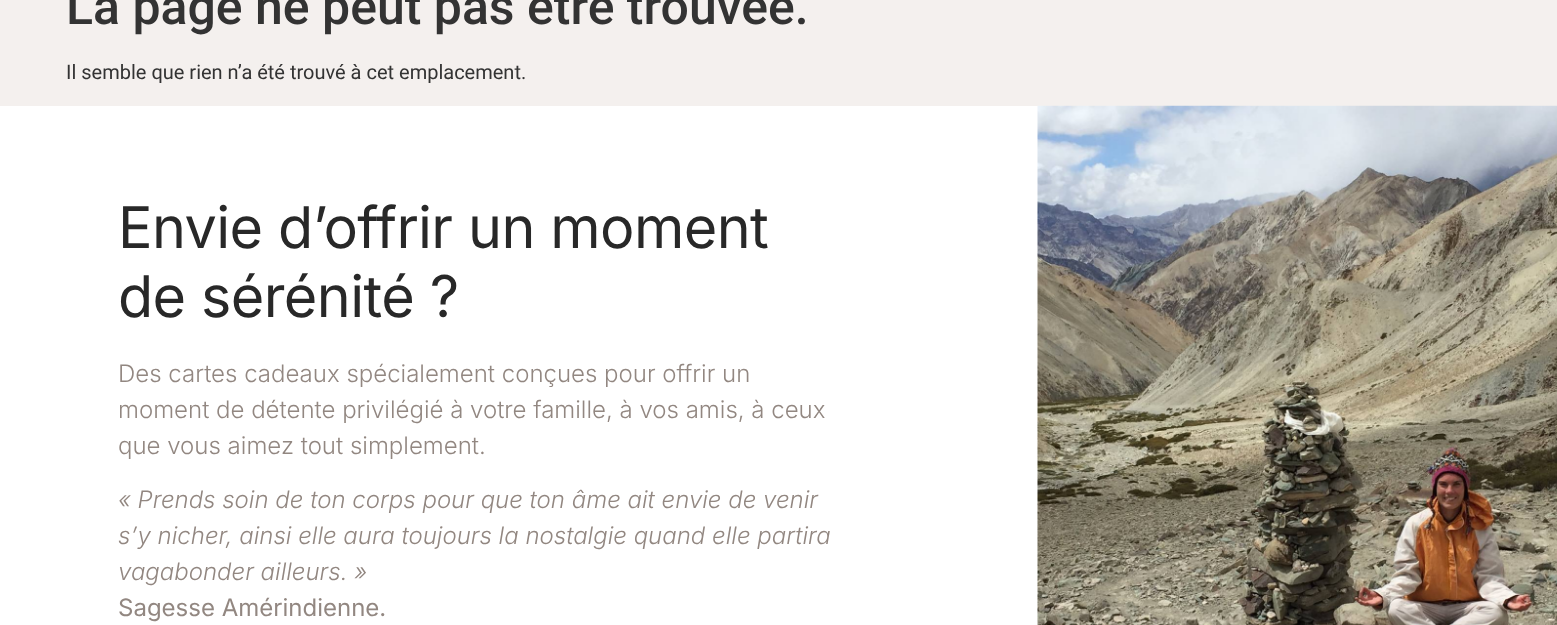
<!DOCTYPE html>
<meta charset="utf-8">
<style>body { margin: 0 } canvas { display: block }</style>
<canvas id="canvas" width="1557" height="625"></canvas>
<script type="module">
  const canvas = document.getElementById("canvas");
  const ctx = canvas.getContext("2d");
  ctx.miterLimit = 4;
  ctx.fontKerning = "normal";
  async function loadImage(src) {
    const img = new Image();
    img.src = src;
    await img.decode();
    return img;
  }

  ctx.fillStyle = "#f4f0ee";
  ctx.fillRect(0, 0, 1557, 625);
  ctx.font = "500 50px Roboto";
  ctx.fillStyle = "#333333";
  ctx.fillText("La page ne peut pas être trouvée.", 66, 24);
  ctx.font = "20px Roboto";
  ctx.fillText("Il semble que rien n’a été trouvé à cet emplacement.", 66, 79);
  ctx.fillStyle = "#ffffff";
  ctx.fillRect(0, 106, 1038, 519);
  ctx.letterSpacing = "-0.6px";
  ctx.font = "57.5px Inter";
  ctx.fillStyle = "#282828";
  ctx.fillText("Envie d’offrir un moment", 118, 248);
  ctx.fillText("de sérénité ?", 118, 317);
  ctx.letterSpacing = "0px";
  ctx.font = "300 24px Inter";
  ctx.fillStyle = "#928781";
  ctx.fillText("Des cartes cadeaux spécialement conçues pour offrir un", 118, 382);
  ctx.fillText("moment de détente privilégié à votre famille, à vos amis, à ceux", 118, 418);
  ctx.fillText("que vous aimez tout simplement.", 118, 454);
  ctx.font = "italic 300 24px Inter";
  ctx.fillText("« Prends soin de ton corps pour que ton âme ait envie de venir", 118, 508);
  ctx.fillText("s’y nicher, ainsi elle aura toujours la nostalgie quand elle partira", 118, 544);
  ctx.fillText("vagabonder ailleurs. »", 118, 580);
  ctx.font = "24px Inter";
  ctx.fillText("Sagesse Amérindienne.", 118, 616);
  ctx.drawImage(await loadImage("img1.png"), 1037, 105, 520, 520);
</script>
